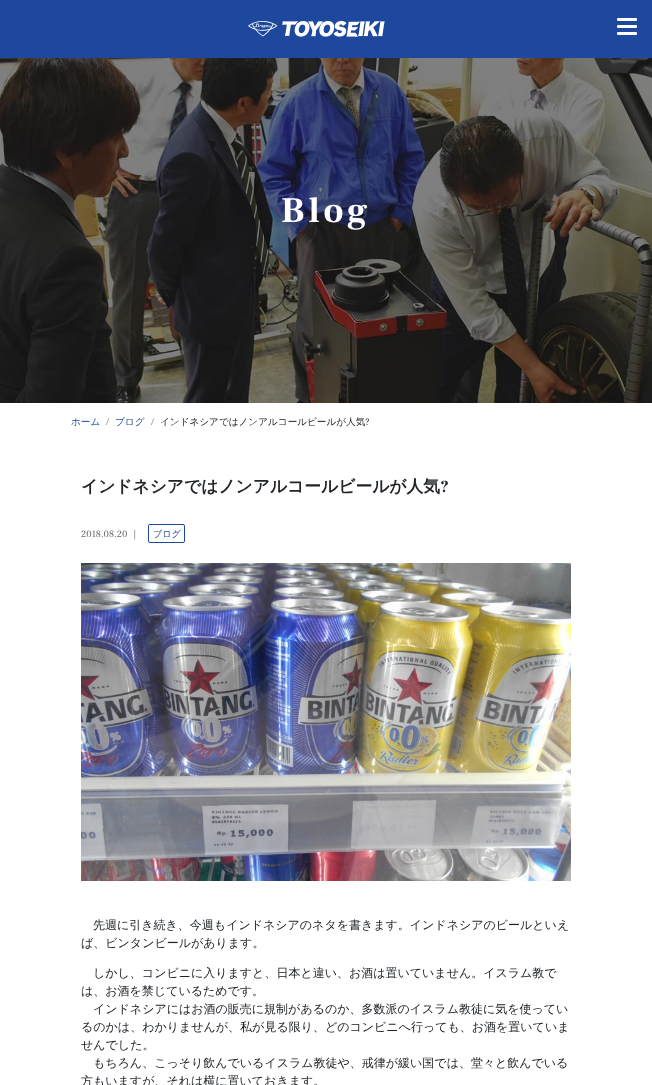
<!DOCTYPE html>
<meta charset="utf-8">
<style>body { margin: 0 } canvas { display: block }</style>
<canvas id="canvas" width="652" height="1085"></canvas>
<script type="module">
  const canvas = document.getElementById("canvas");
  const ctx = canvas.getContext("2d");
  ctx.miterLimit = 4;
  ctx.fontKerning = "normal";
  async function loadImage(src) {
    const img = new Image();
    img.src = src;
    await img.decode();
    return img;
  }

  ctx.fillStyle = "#ffffff";
  ctx.fillRect(0, 0, 652, 1085);
  ctx.fillStyle = "#1e489d";
  ctx.fillRect(0, 0, 652, 58);
  ctx.fillStyle = "#ffffff";
  ctx.beginPath();
  ctx.roundRect(617, 18, 20, 3, 1);
  ctx.fill();
  ctx.beginPath();
  ctx.roundRect(617, 25, 20, 3, 1);
  ctx.fill();
  ctx.beginPath();
  ctx.roundRect(617, 32, 20, 3, 1);
  ctx.fill();
  ctx.drawImage(await loadImage("img1.png"), 248, 21, 137, 16);
  ctx.drawImage(await loadImage("img2.png"), 0, 58, 652, 345);
  ctx.letterSpacing = "4px";
  ctx.font = "bold 36px Frank Ruhl Libre";
  ctx.fillText("Blog", 281, 222);
  ctx.letterSpacing = "0px";
  ctx.font = "500 9.6px WenQuanYi Zen Hei";
  ctx.fillStyle = "#1e489d";
  ctx.fillText("ホーム", 71, 425);
  ctx.font = "9.6px Frank Ruhl Libre";
  ctx.fillStyle = "#6c757d";
  ctx.fillText("/", 106, 425);
  ctx.font = "500 9.6px WenQuanYi Zen Hei";
  ctx.fillStyle = "#1e489d";
  ctx.fillText("ブログ", 115, 425);
  ctx.font = "9.6px Frank Ruhl Libre";
  ctx.fillStyle = "#6c757d";
  ctx.fillText("/", 151, 425);
  ctx.font = "500 9.6px WenQuanYi Zen Hei";
  ctx.fillStyle = "#212529";
  ctx.fillText("インドネシアではノンアルコールビールが人気", 160, 425);
  ctx.font = "9.6px Frank Ruhl Libre";
  ctx.fillText("?", 365, 425);
  ctx.font = "bold 16.8px WenQuanYi Zen Hei";
  ctx.fillText("インドネシアではノンアルコールビールが人気", 81, 492);
  ctx.font = "bold 16.8px Frank Ruhl Libre";
  ctx.fillText("?", 440, 492);
  ctx.font = "9.6px Frank Ruhl Libre";
  ctx.fillStyle = "#666666";
  ctx.fillText("2018.08.20", 81, 537);
  ctx.font = "500 9.6px WenQuanYi Zen Hei";
  ctx.fillText("｜", 130, 537);
  ctx.beginPath();
  ctx.roundRect(148.5, 524.5, 36, 18, 1.5);
  ctx.strokeStyle = "#1e489d";
  ctx.stroke();
  ctx.font = "500 9px WenQuanYi Zen Hei";
  ctx.fillStyle = "#1e489d";
  ctx.fillText("ブログ", 153, 537);
  ctx.drawImage(await loadImage("img3.png"), 81, 563, 490, 318);
  ctx.font = "500 12px WenQuanYi Zen Hei";
  ctx.fillStyle = "#212529";
  ctx.fillText("先週に引き続き、今週もインドネシアのネタを書きます。インドネシアのビールといえ", 93, 929);
  ctx.fillText("ば、ビンタンビールがあります。", 81, 947);
  ctx.fillText("しかし、コンビニに入りますと、日本と違い、お酒は置いていません。イスラム教で", 93, 977);
  ctx.fillText("は、お酒を禁じているためです。", 81, 995);
  ctx.fillText("インドネシアにはお酒の販売に規制があるのか、多数派のイスラム教徒に気を使ってい", 93, 1013);
  ctx.fillText("るのかは、わかりませんが、私が見る限り、どのコンビニへ行っても、お酒を置いていま", 81, 1031);
  ctx.fillText("せんでした。", 81, 1049);
  ctx.fillText("もちろん、こっそり飲んでいるイスラム教徒や、戒律が緩い国では、堂々と飲んでいる", 93, 1067);
  ctx.fillText("方もいますが、それは横に置いておきます。", 81, 1085);
</script>
